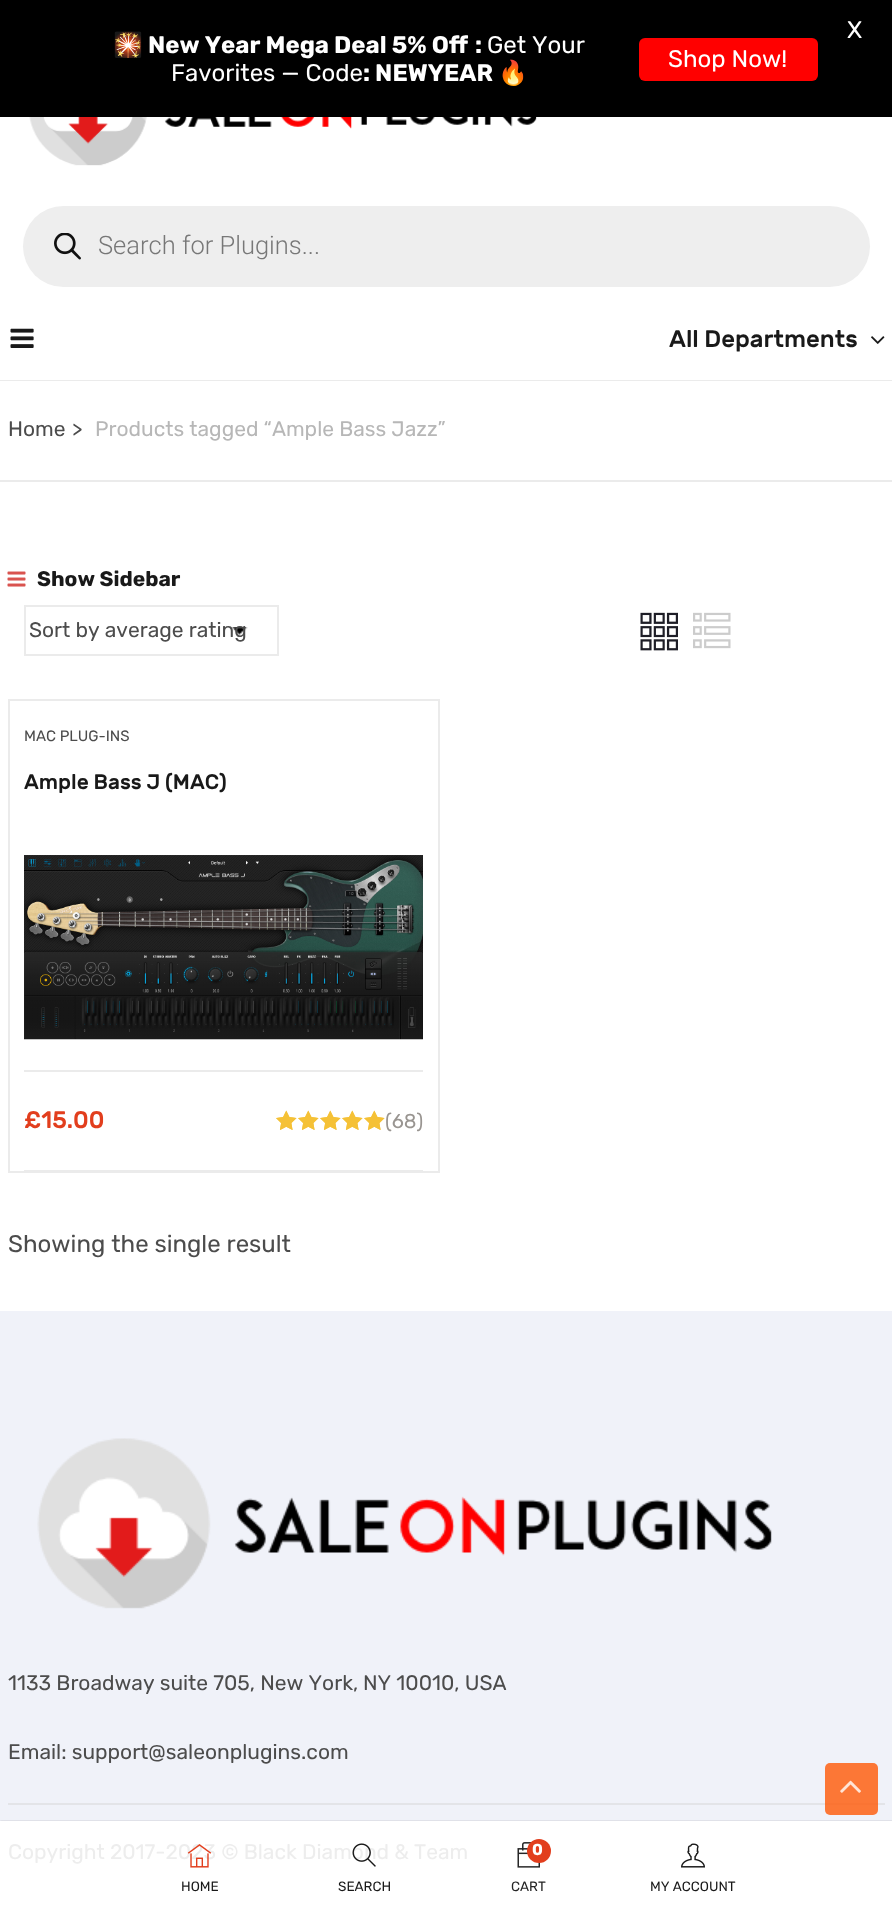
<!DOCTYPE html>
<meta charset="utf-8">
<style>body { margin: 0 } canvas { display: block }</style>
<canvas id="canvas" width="892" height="1920"></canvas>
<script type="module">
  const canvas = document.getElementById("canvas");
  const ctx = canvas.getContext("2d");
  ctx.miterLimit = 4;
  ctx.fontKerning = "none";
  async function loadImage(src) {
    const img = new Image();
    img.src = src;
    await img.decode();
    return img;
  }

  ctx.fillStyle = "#ffffff";
  ctx.fillRect(0, 0, 892, 1920);
  ctx.fillStyle = "#000000";
  ctx.fillRect(0, 0, 892, 117);
  ctx.font = "bold 24px Noto Color Emoji";
  ctx.fillStyle = "#ffffff";
  ctx.fillText("🎇", 113, 53);
  ctx.font = "bold 24px Rubik";
  ctx.fillText("New Year Mega Deal 5% Off", 148, 53);
  ctx.fillText(":", 475, 53);
  ctx.font = "24px Rubik";
  ctx.fillText("Get Your", 487, 53);
  ctx.fillText("Favorites — Code", 171, 81);
  ctx.font = "bold 24px Rubik";
  ctx.fillText(": NEWYEAR", 363, 81);
  ctx.font = "bold 24px Noto Color Emoji";
  ctx.fillText("🔥", 498, 81);
  ctx.fillStyle = "#ff0000";
  ctx.beginPath();
  ctx.roundRect(639, 38, 179, 43, 6);
  ctx.fill();
  ctx.font = "24px Rubik";
  ctx.fillStyle = "#ffffff";
  ctx.fillText("Shop Now!", 668, 67);
  ctx.fillText("X", 847, 38);
  ctx.drawImage(await loadImage("img1.png"), 29, 117, 508, 49);
  ctx.fillStyle = "#eeeeee";
  ctx.beginPath();
  ctx.roundRect(23, 206, 847, 81, 40.5);
  ctx.fill();
  ctx.drawImage(await loadImage("img2.png"), 54, 233, 27, 27);
  ctx.font = "300 25.5px Roboto";
  ctx.fillStyle = "#777777";
  ctx.fillText("Search for Plugins...", 98, 254);
  ctx.fillStyle = "#ebebeb";
  ctx.fillRect(0, 380, 892, 1);
  ctx.drawImage(await loadImage("img3.png"), 10, 328, 24, 20);
  ctx.font = "500 24px Rubik";
  ctx.fillStyle = "#191919";
  ctx.fillText("All Departments", 669, 347);
  ctx.drawImage(await loadImage("img4.png"), 871, 336, 14, 8);
  ctx.fillStyle = "#ebebeb";
  ctx.fillRect(0, 480, 892, 2);
  ctx.font = "21px Rubik";
  ctx.fillStyle = "#4c4c4c";
  ctx.fillText("Home", 8, 436);
  ctx.fillText(">", 72, 436);
  ctx.fillStyle = "#b7b7b7";
  ctx.fillText("Products tagged “Ample Bass Jazz”", 95, 436);
  ctx.drawImage(await loadImage("img5.png"), 7, 571, 19, 16);
  ctx.font = "bold 21px Rubik";
  ctx.fillStyle = "#191919";
  ctx.fillText("Show Sidebar", 37, 586);
  ctx.drawImage(await loadImage("img6.png"), 232, 627, 16, 8);
  ctx.strokeStyle = "#ebebeb";
  ctx.lineWidth = 2;
  ctx.strokeRect(25, 606, 253, 49);
  ctx.font = "21px Rubik";
  ctx.fillStyle = "#4c4c4c";
  ctx.fillText("Sort by average rating", 29, 637);
  ctx.drawImage(await loadImage("img7.png"), 640, 612, 38, 39);
  ctx.drawImage(await loadImage("img8.png"), 693, 612, 38, 37);
  ctx.strokeRect(9, 700, 430, 472);
  ctx.font = "15px Rubik";
  ctx.fillText("MAC PLUG-INS", 24, 741);
  ctx.font = "500 21px Rubik";
  ctx.fillStyle = "#191919";
  ctx.fillText("Ample Bass J (MAC)", 24, 789);
  ctx.fillStyle = "#ebebeb";
  ctx.fillRect(24, 1070, 399, 2);
  ctx.drawImage(await loadImage("img9.png"), 24, 855, 399, 185);
  ctx.fillRect(24, 1170, 399, 1);
  ctx.font = "500 24px Rubik";
  ctx.fillStyle = "#e23e1d";
  ctx.fillText("£15.00", 24, 1128);
  ctx.drawImage(await loadImage("img10.png"), 276, 1110, 109, 20);
  ctx.drawImage(await loadImage("img11.png"), 276, 1110, 109, 20);
  ctx.font = "20px Rubik";
  ctx.fillStyle = "#999591";
  ctx.fillText("(68)", 385, 1128);
  ctx.font = "24px Rubik";
  ctx.fillStyle = "#4c4c4c";
  ctx.fillText("Showing the single result", 8, 1252);
  ctx.fillStyle = "#f0f2f9";
  ctx.fillRect(0, 1311, 892, 510);
  ctx.drawImage(await loadImage("img12.png"), 37, 1438, 735, 171);
  ctx.font = "21px Rubik";
  ctx.fillStyle = "#4c4c4c";
  ctx.fillText("1133 Broadway suite 705, New York,", 8, 1690);
  ctx.fillText("NY 10010, USA", 363, 1690);
  ctx.fillText("Email: support@saleonplugins.com", 8, 1759);
  ctx.fillStyle = "#e3e4e8";
  ctx.fillRect(8, 1803, 877, 2);
  ctx.fillStyle = "#ededed";
  ctx.fillText("Copyright 2017-2023 © Black Diamond & Team", 8, 1859);
  ctx.fillStyle = "rgba(255, 88, 5, 0.8)";
  ctx.beginPath();
  ctx.roundRect(825, 1763, 53, 52, 5);
  ctx.fill();
  ctx.drawImage(await loadImage("img13.png"), 840, 1780, 21, 13);
  ctx.save();
  ctx.beginPath();
  ctx.rect(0, 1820, 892, 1);
  ctx.clip();
  ctx.fillStyle = "rgba(0, 0, 0, 0.2)";
  ctx.filter = "blur(1px)";
  ctx.beginPath();
  ctx.rect(0, 1821, 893, 99);
  ctx.fill();
  ctx.filter = "none";
  ctx.restore();
  ctx.drawImage(await loadImage("img14.png"), 187, 1844, 25, 24);
  ctx.font = "13.5px Rubik";
  ctx.fillStyle = "#191919";
  ctx.fillText("HOME", 181, 1891);
  ctx.drawImage(await loadImage("img15.png"), 352, 1843, 24, 24);
  ctx.fillText("SEARCH", 338, 1891);
  ctx.drawImage(await loadImage("img16.png"), 517, 1842, 23, 26);
  ctx.fillStyle = "#e23e1d";
  ctx.beginPath();
  ctx.arc(539, 1851, 12, 0, Math.PI * 2);
  ctx.fill();
  ctx.font = "bold 16px Rubik";
  ctx.fillStyle = "#ffffff";
  ctx.fillText("0", 532, 1855);
  ctx.font = "13.5px Rubik";
  ctx.fillStyle = "#252525";
  ctx.fillText("CART", 511, 1891);
  ctx.drawImage(await loadImage("img17.png"), 681, 1843, 24, 25);
  ctx.fillStyle = "#191919";
  ctx.fillText("MY ACCOUNT", 650, 1891);
</script>
